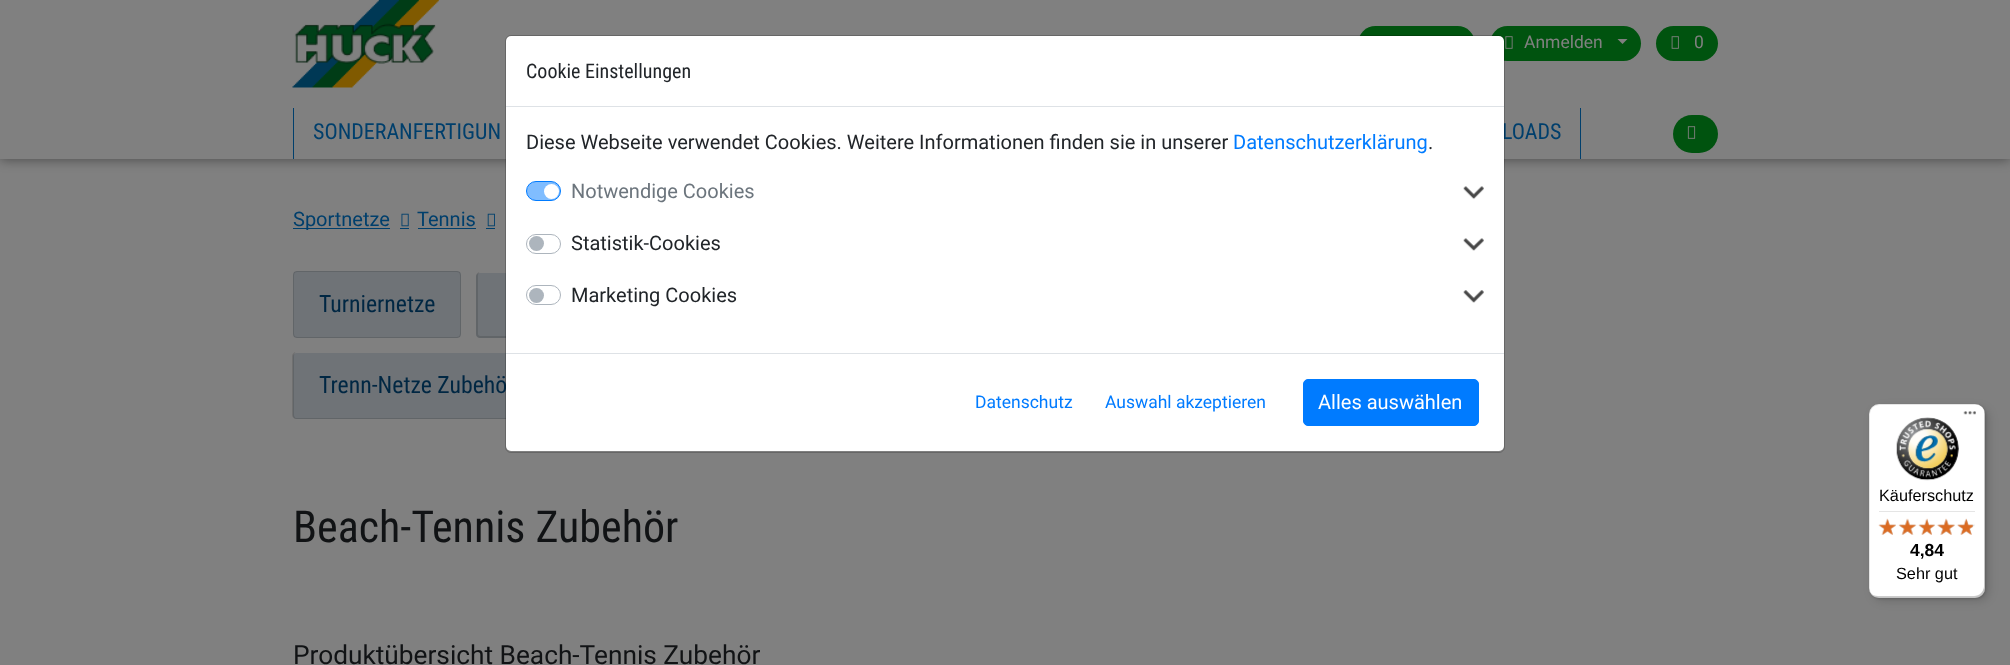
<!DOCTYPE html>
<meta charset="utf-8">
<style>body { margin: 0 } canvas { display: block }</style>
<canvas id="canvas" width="2010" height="665"></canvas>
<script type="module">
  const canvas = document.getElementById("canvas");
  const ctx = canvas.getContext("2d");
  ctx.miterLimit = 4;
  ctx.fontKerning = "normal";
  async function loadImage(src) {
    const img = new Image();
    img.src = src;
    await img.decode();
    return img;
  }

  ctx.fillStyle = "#808080";
  ctx.fillRect(0, 0, 2010, 665);
  ctx.fillStyle = "rgba(0, 0, 0, 0.4)";
  ctx.filter = "blur(6px)";
  ctx.beginPath();
  ctx.rect(0, 1, 2010, 159);
  ctx.fill();
  ctx.filter = "none";
  ctx.fillStyle = "#808080";
  ctx.fillRect(0, 0, 2010, 159);
  ctx.drawImage(await loadImage("img1.png"), 292, 0, 147, 88);
  ctx.fillStyle = "#00530f";
  ctx.beginPath();
  ctx.roundRect(1358, 26, 117, 35, 17.5);
  ctx.fill();
  ctx.beginPath();
  ctx.roundRect(1490, 26, 151, 35, 17.5);
  ctx.fill();
  ctx.drawImage(await loadImage("img2.png"), 1505, 36, 8, 13);
  ctx.font = "17.5px Roboto";
  ctx.fillStyle = "#808080";
  ctx.fillText("Anmelden", 1524, 48);
  ctx.beginPath();
  ctx.moveTo(1617.5, 39);
  ctx.lineTo(1627.5, 39);
  ctx.lineTo(1622.5, 44);
  ctx.closePath();
  ctx.fill();
  ctx.fillStyle = "#00530f";
  ctx.beginPath();
  ctx.roundRect(1656, 26, 62, 35, 17.5);
  ctx.fill();
  ctx.drawImage(await loadImage("img3.png"), 1671, 36, 8, 13);
  ctx.fillStyle = "#808080";
  ctx.fillText("0", 1694, 48);
  ctx.fillStyle = "#003f6c";
  ctx.fillRect(293, 108, 1, 51);
  ctx.font = "22px Roboto Condensed";
  ctx.fillText("SONDERANFERTIGUN", 313, 139);
  ctx.fillRect(1580, 108, 1, 51);
  ctx.fillText("LOADS", 1502, 139);
  ctx.fillStyle = "#00530f";
  ctx.beginPath();
  ctx.roundRect(1673, 115, 45, 38, 19);
  ctx.fill();
  ctx.drawImage(await loadImage("img4.png"), 1687, 126, 9, 13);
  ctx.fillStyle = "#003f6c";
  ctx.fillRect(293, 228, 97, 1);
  ctx.font = "20px Roboto";
  ctx.fillText("Sportnetze", 293, 226);
  ctx.drawImage(await loadImage("img5.png"), 401, 213, 8, 14);
  ctx.fillRect(400, 228, 9, 1);
  ctx.fillText("Tennis", 417, 226);
  ctx.fillRect(418, 228, 58, 1);
  ctx.drawImage(await loadImage("img6.png"), 487, 213, 8, 14);
  ctx.fillRect(486, 228, 9, 1);
  ctx.fillStyle = "#6f7377";
  ctx.beginPath();
  ctx.roundRect(293, 271, 168, 67, 4);
  ctx.fill();
  ctx.beginPath();
  ctx.roundRect(293.5, 271.5, 167, 66, 3.5);
  ctx.strokeStyle = "rgba(0, 0, 0, 0.12)";
  ctx.stroke();
  ctx.font = "23.75px Roboto Condensed";
  ctx.fillStyle = "#002743";
  ctx.fillText("Turniernetze", 319, 312);
  ctx.fillStyle = "#6f7377";
  ctx.beginPath();
  ctx.roundRect(476, 273, 173, 65, 4);
  ctx.fill();
  ctx.fillStyle = "rgba(0, 0, 0, 0.12)";
  ctx.beginPath();
  ctx.moveTo(480, 272);
  ctx.lineTo(645, 272);
  ctx.bezierCurveTo(647, 272, 649, 274, 649, 276);
  ctx.lineTo(649, 334);
  ctx.bezierCurveTo(649, 336, 647, 338, 645, 338);
  ctx.lineTo(480, 338);
  ctx.bezierCurveTo(478, 338, 476, 336, 476, 334);
  ctx.lineTo(476, 276);
  ctx.bezierCurveTo(476, 274, 478, 272, 480, 272);
  ctx.closePath();
  ctx.moveTo(480, 272);
  ctx.lineTo(645, 272);
  ctx.bezierCurveTo(646, 272, 648, 274, 648, 276);
  ctx.lineTo(648, 334);
  ctx.bezierCurveTo(648, 335, 646, 336, 645, 336);
  ctx.lineTo(480, 336);
  ctx.bezierCurveTo(479, 336, 478, 335, 478, 334);
  ctx.lineTo(478, 276);
  ctx.bezierCurveTo(478, 274, 479, 272, 480, 272);
  ctx.closePath();
  ctx.fill("evenodd");
  ctx.fillStyle = "#6f7377";
  ctx.beginPath();
  ctx.roundRect(293, 353, 247, 66, 4);
  ctx.fill();
  ctx.fillStyle = "rgba(0, 0, 0, 0.12)";
  ctx.beginPath();
  ctx.moveTo(296, 352);
  ctx.lineTo(536, 352);
  ctx.bezierCurveTo(538, 352, 540, 354, 540, 356);
  ctx.lineTo(540, 415);
  ctx.bezierCurveTo(540, 417, 538, 419, 536, 419);
  ctx.lineTo(296, 419);
  ctx.bezierCurveTo(294, 419, 292, 417, 292, 415);
  ctx.lineTo(292, 356);
  ctx.bezierCurveTo(292, 354, 294, 352, 296, 352);
  ctx.closePath();
  ctx.moveTo(296, 352);
  ctx.lineTo(536, 352);
  ctx.bezierCurveTo(538, 352, 539, 354, 539, 356);
  ctx.lineTo(539, 415);
  ctx.bezierCurveTo(539, 416, 538, 418, 536, 418);
  ctx.lineTo(296, 418);
  ctx.bezierCurveTo(295, 418, 294, 416, 294, 415);
  ctx.lineTo(294, 356);
  ctx.bezierCurveTo(294, 354, 295, 352, 296, 352);
  ctx.closePath();
  ctx.fill("evenodd");
  ctx.fillStyle = "#002743";
  ctx.fillText("Trenn-Netze Zubehö", 319, 393);
  ctx.font = "44px Roboto Condensed";
  ctx.fillStyle = "#111315";
  ctx.fillText("Beach-Tennis Zubehör", 293, 542);
  ctx.font = "26.25px Roboto";
  ctx.fillText("Produktübersicht Beach-Tennis Zubehör", 293, 664);
  ctx.fillStyle = "#ffffff";
  ctx.beginPath();
  ctx.roundRect(506, 36, 998, 415, 5);
  ctx.fill();
  ctx.beginPath();
  ctx.roundRect(505.5, 35.5, 999, 417, 5.5);
  ctx.strokeStyle = "rgba(0, 0, 0, 0.2)";
  ctx.stroke();
  ctx.fillStyle = "#dee2e6";
  ctx.fillRect(506, 106, 998, 1);
  ctx.font = "20px Roboto Condensed";
  ctx.fillStyle = "#212529";
  ctx.fillText("Cookie Einstellungen", 526, 78);
  ctx.font = "20px Roboto";
  ctx.fillText("Diese Webseite verwendet Cookies. Weitere Informationen finden sie in unserer", 526, 149);
  ctx.fillStyle = "#007bff";
  ctx.fillText("Datenschutzerklärung", 1233, 149);
  ctx.fillStyle = "#212529";
  ctx.fillText(".", 1428, 149);
  ctx.fillStyle = "#80bdff";
  ctx.beginPath();
  ctx.roundRect(526.5, 181.5, 34, 19, 9.5);
  ctx.fill();
  ctx.strokeStyle = "#007bff";
  ctx.stroke();
  ctx.fillStyle = "#6c757d";
  ctx.fillText("Notwendige Cookies", 571, 198);
  ctx.fillStyle = "#ffffff";
  ctx.beginPath();
  ctx.arc(551.5, 191.5, 7.5, 0, Math.PI * 2);
  ctx.fill();
  ctx.drawImage(await loadImage("img7.png"), 1463, 186, 21, 14);
  ctx.beginPath();
  ctx.roundRect(526.5, 234.5, 34, 19, 9.5);
  ctx.strokeStyle = "#adb5bd";
  ctx.stroke();
  ctx.fillStyle = "#212529";
  ctx.fillText("Statistik-Cookies", 571, 250);
  ctx.fillStyle = "#adb5bd";
  ctx.beginPath();
  ctx.arc(536.5, 243.5, 7.5, 0, Math.PI * 2);
  ctx.fill();
  ctx.drawImage(await loadImage("img8.png"), 1463, 238, 21, 13);
  ctx.beginPath();
  ctx.roundRect(526.5, 285.5, 34, 19, 9.5);
  ctx.stroke();
  ctx.fillStyle = "#212529";
  ctx.fillText("Marketing Cookies", 571, 302);
  ctx.fillStyle = "#adb5bd";
  ctx.beginPath();
  ctx.arc(536.5, 295.5, 7.5, 0, Math.PI * 2);
  ctx.fill();
  ctx.drawImage(await loadImage("img9.png"), 1463, 290, 21, 13);
  ctx.fillStyle = "#dee2e6";
  ctx.fillRect(506, 353, 998, 1);
  ctx.font = "17.5px Roboto";
  ctx.fillStyle = "#007bff";
  ctx.fillText("Datenschutz", 975, 408);
  ctx.fillText("Auswahl akzeptieren", 1105, 408);
  ctx.beginPath();
  ctx.roundRect(1303.5, 379.5, 175, 46, 4.5);
  ctx.fill();
  ctx.strokeStyle = "#007bff";
  ctx.stroke();
  ctx.font = "20px Roboto";
  ctx.fillStyle = "#ffffff";
  ctx.fillText("Alles auswählen", 1318, 409);
  ctx.fillStyle = "rgba(0, 0, 0, 0.15)";
  ctx.filter = "blur(5px)";
  ctx.beginPath();
  ctx.roundRect(1873, 408, 116, 193, 10);
  ctx.fill();
  ctx.filter = "none";
  ctx.filter = "blur(1px)";
  ctx.beginPath();
  ctx.roundRect(1870, 405, 116, 194, 10);
  ctx.fill();
  ctx.filter = "none";
  ctx.fillStyle = "#ffffff";
  ctx.beginPath();
  ctx.roundRect(1869, 404, 116, 194, 10);
  ctx.fill();
  ctx.fillStyle = "rgba(0, 0, 0, 0.1)";
  ctx.beginPath();
  ctx.moveTo(1880, 405);
  ctx.lineTo(1976, 405);
  ctx.bezierCurveTo(1978, 405, 1980, 405, 1981, 406);
  ctx.bezierCurveTo(1980, 405, 1977, 404, 1975, 404);
  ctx.lineTo(1879, 404);
  ctx.bezierCurveTo(1873, 404, 1869, 408, 1869, 414);
  ctx.lineTo(1869, 588);
  ctx.bezierCurveTo(1869, 591, 1870, 594, 1873, 596);
  ctx.bezierCurveTo(1871, 594, 1870, 591, 1870, 589);
  ctx.lineTo(1870, 415);
  ctx.bezierCurveTo(1870, 409, 1874, 405, 1880, 405);
  ctx.closePath();
  ctx.fill();
  ctx.fillStyle = "rgba(0, 0, 0, 0.2)";
  ctx.beginPath();
  ctx.moveTo(1870, 592);
  ctx.bezierCurveTo(1872, 596, 1875, 598, 1879, 598);
  ctx.lineTo(1975, 598);
  ctx.bezierCurveTo(1981, 598, 1985, 594, 1985, 588);
  ctx.lineTo(1985, 414);
  ctx.bezierCurveTo(1985, 412, 1984, 410, 1983, 408);
  ctx.bezierCurveTo(1984, 409, 1984, 411, 1984, 412);
  ctx.lineTo(1984, 586);
  ctx.bezierCurveTo(1984, 592, 1979, 596, 1974, 596);
  ctx.lineTo(1878, 596);
  ctx.bezierCurveTo(1875, 596, 1872, 595, 1870, 592);
  ctx.closePath();
  ctx.fill();
  ctx.fillStyle = "rgba(50, 50, 50, 0.2)";
  ctx.beginPath();
  ctx.moveTo(1871, 595);
  ctx.bezierCurveTo(1873, 597, 1876, 598, 1879, 598);
  ctx.lineTo(1975, 598);
  ctx.bezierCurveTo(1981, 598, 1985, 594, 1985, 588);
  ctx.lineTo(1985, 414);
  ctx.bezierCurveTo(1985, 412, 1984, 409, 1983, 408);
  ctx.bezierCurveTo(1984, 409, 1984, 411, 1984, 413);
  ctx.lineTo(1984, 587);
  ctx.bezierCurveTo(1984, 592, 1980, 597, 1974, 597);
  ctx.lineTo(1878, 597);
  ctx.bezierCurveTo(1875, 597, 1873, 596, 1871, 595);
  ctx.closePath();
  ctx.fill();
  ctx.fillStyle = "rgba(255, 255, 255, 0.3)";
  ctx.beginPath();
  ctx.moveTo(1870, 593);
  ctx.bezierCurveTo(1872, 596, 1875, 598, 1879, 598);
  ctx.lineTo(1975, 598);
  ctx.bezierCurveTo(1981, 598, 1985, 594, 1985, 588);
  ctx.lineTo(1985, 414);
  ctx.bezierCurveTo(1985, 411, 1984, 408, 1981, 406);
  ctx.bezierCurveTo(1983, 408, 1984, 411, 1984, 413);
  ctx.lineTo(1984, 587);
  ctx.bezierCurveTo(1984, 592, 1980, 597, 1974, 597);
  ctx.lineTo(1878, 597);
  ctx.bezierCurveTo(1875, 597, 1872, 595, 1870, 593);
  ctx.closePath();
  ctx.fill();
  ctx.drawImage(await loadImage("img10.png"), 1963, 411, 13, 4);
  ctx.drawImage(await loadImage("img11.png"), 1896, 417, 63, 64);
  ctx.font = "16.25px Liberation Sans";
  ctx.fillStyle = "#000000";
  ctx.fillText("Käuferschutz", 1879, 501);
  ctx.fillStyle = "#e5e5e5";
  ctx.fillRect(1879, 511, 96, 1);
  ctx.drawImage(await loadImage("img17.png"), 1879, 519, 17, 16);
  ctx.drawImage(await loadImage("img12.png"), 1878, 518, 18, 17);
  ctx.drawImage(await loadImage("img18.png"), 1899, 519, 17, 16);
  ctx.drawImage(await loadImage("img13.png"), 1898, 518, 19, 17);
  ctx.drawImage(await loadImage("img19.png"), 1919, 519, 16, 16);
  ctx.drawImage(await loadImage("img14.png"), 1918, 518, 17, 17);
  ctx.drawImage(await loadImage("img20.png"), 1937, 519, 18, 16);
  ctx.drawImage(await loadImage("img15.png"), 1937, 518, 18, 17);
  ctx.drawImage(await loadImage("img21.png"), 1957, 519, 18, 16);
  ctx.drawImage(await loadImage("img16.png"), 1957, 518, 16, 17);
  ctx.font = "bold 17.5px Liberation Sans";
  ctx.fillStyle = "#000000";
  ctx.fillText("4,84", 1910, 556);
  ctx.font = "16.25px Liberation Sans";
  ctx.fillText("Sehr gut", 1896, 579);
</script>
